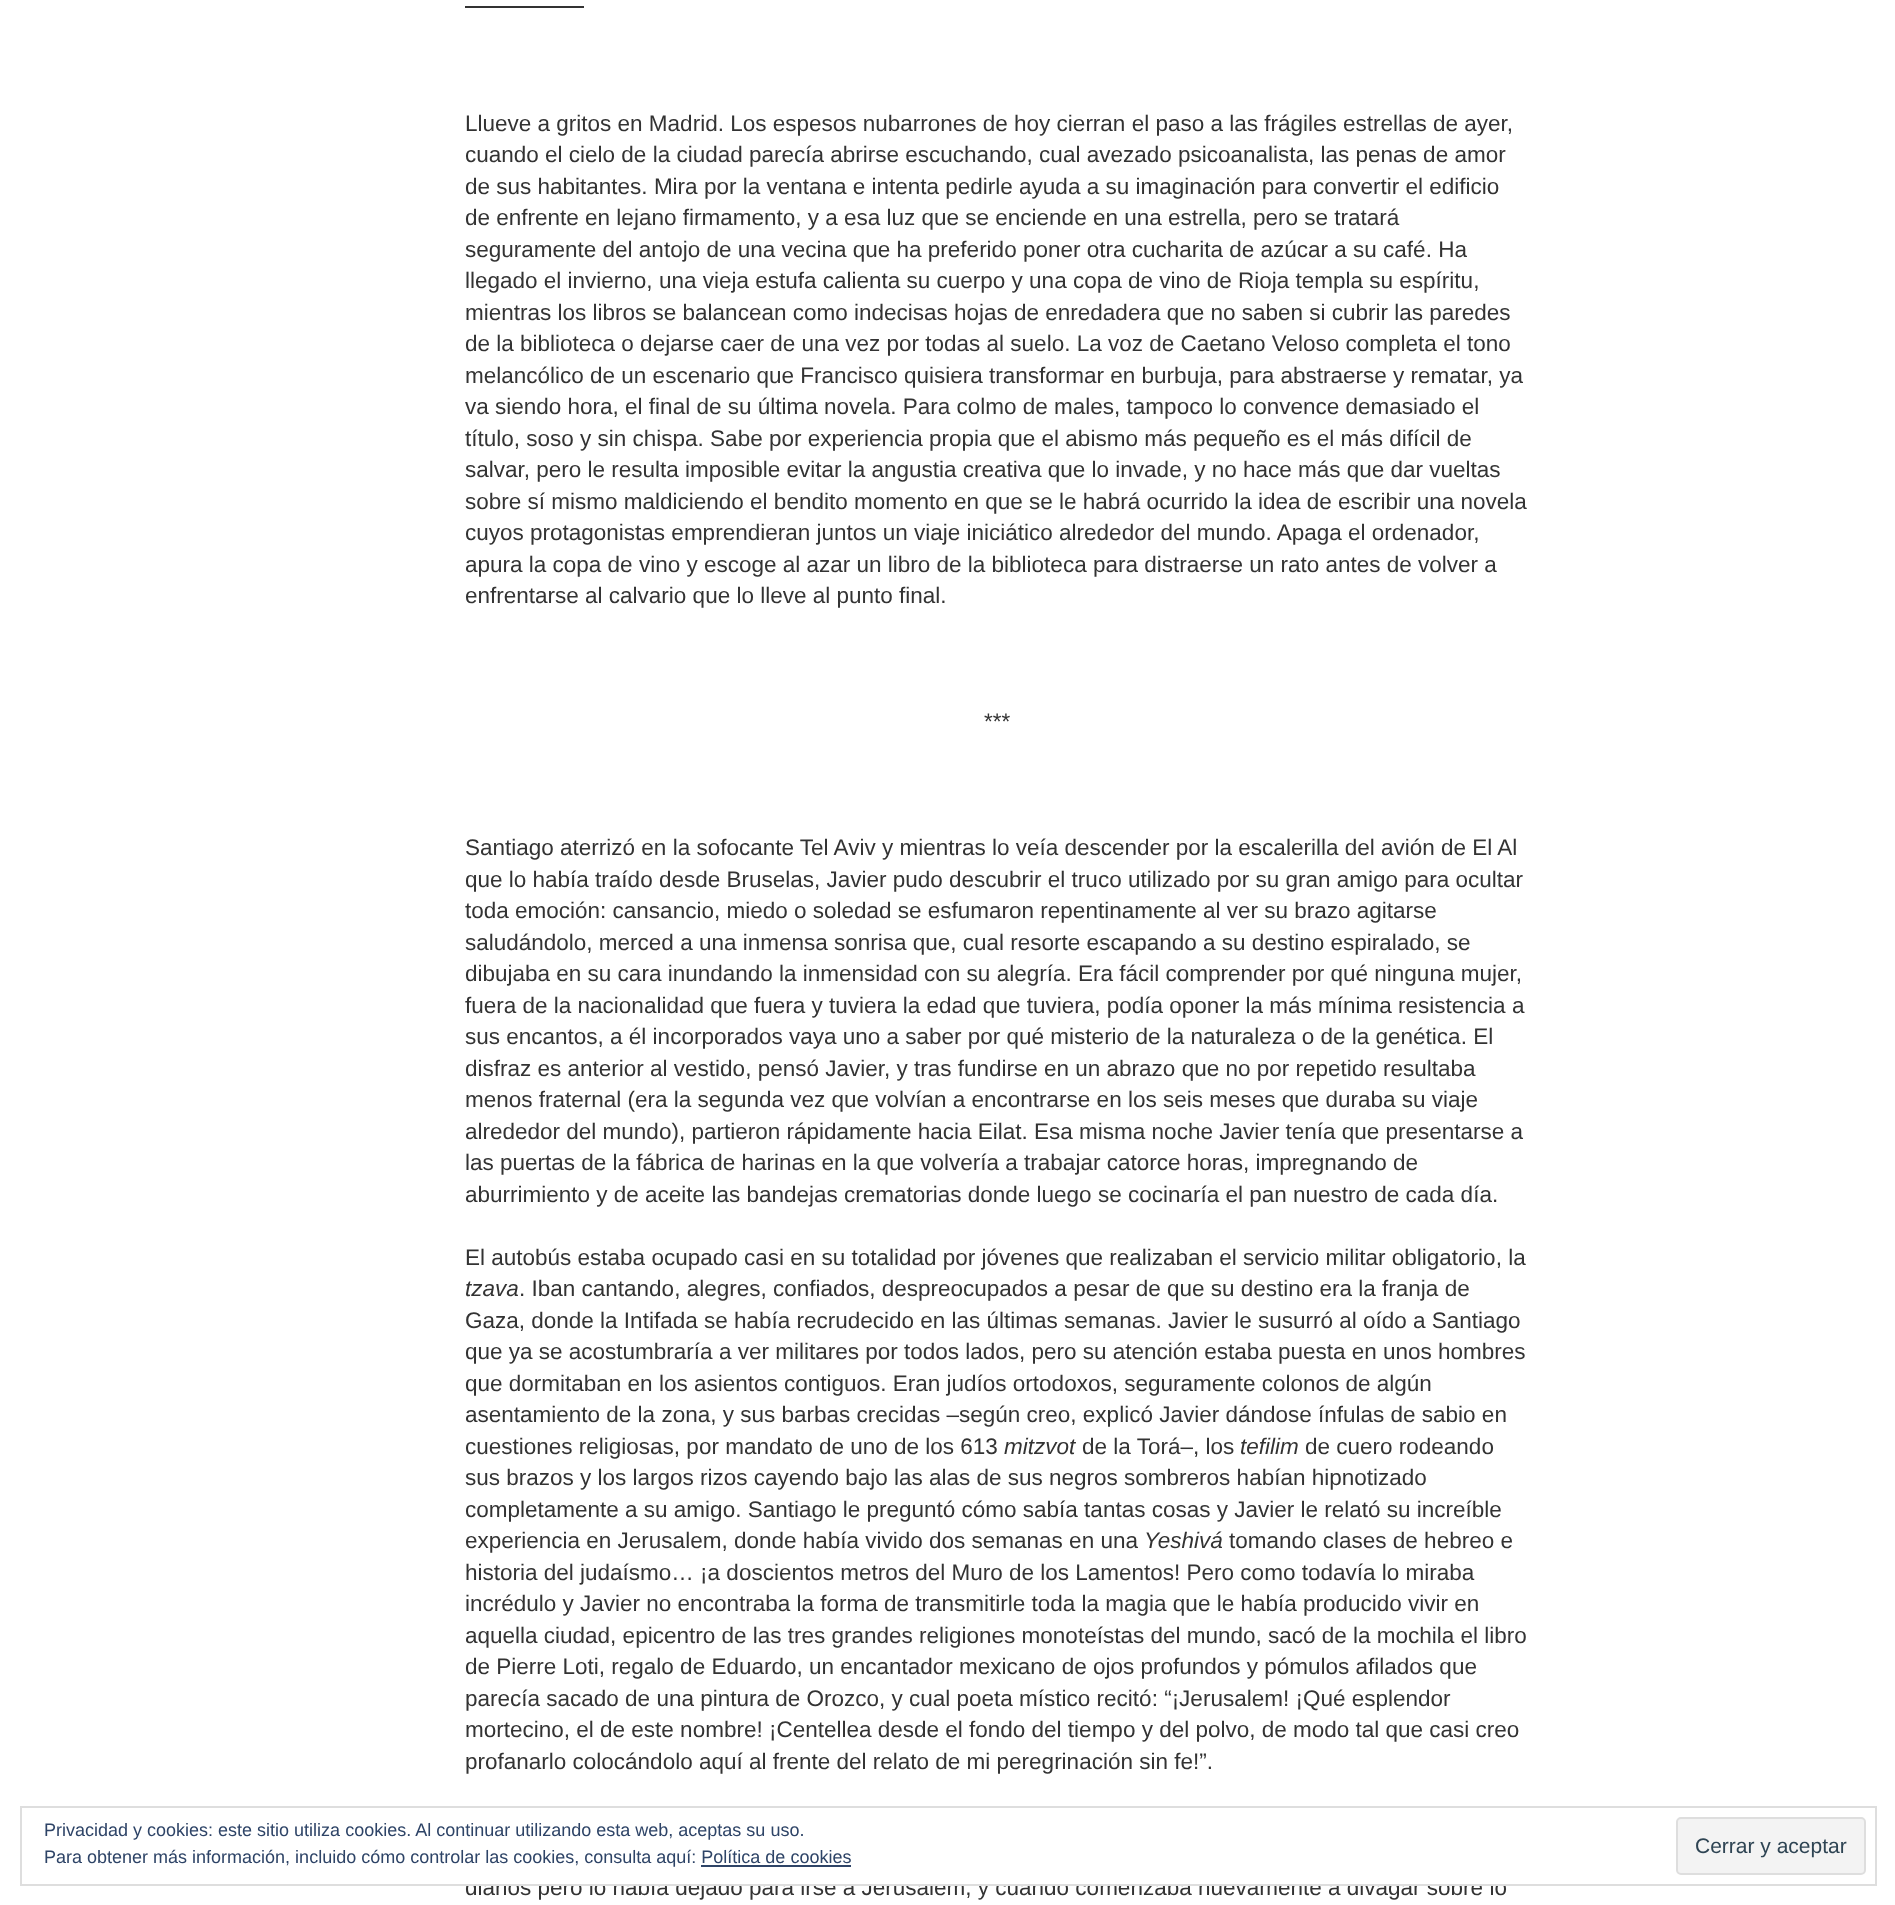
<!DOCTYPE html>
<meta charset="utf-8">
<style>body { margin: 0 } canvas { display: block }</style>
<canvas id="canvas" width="1895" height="1905"></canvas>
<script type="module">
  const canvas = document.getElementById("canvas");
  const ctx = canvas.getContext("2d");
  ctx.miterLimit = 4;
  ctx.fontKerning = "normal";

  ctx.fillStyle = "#ffffff";
  ctx.fillRect(0, 0, 1895, 1905);
  ctx.fillStyle = "#333333";
  ctx.fillRect(465, 6, 119, 2);
  ctx.font = "22.5px Liberation Sans";
  ctx.fillText("Llueve a gritos en Madrid. Los espesos nubarrones de hoy cierran el paso a las frágiles estrellas de ayer,", 465, 131);
  ctx.fillText("cuando el cielo de la ciudad parecía abrirse escuchando, cual avezado psicoanalista, las penas de amor", 465, 162);
  ctx.fillText("de sus habitantes. Mira por la ventana e intenta pedirle ayuda a su imaginación para convertir el edificio", 465, 194);
  ctx.fillText("de enfrente en lejano firmamento, y a esa luz que se enciende en una estrella, pero se tratará", 465, 225);
  ctx.fillText("seguramente del antojo de una vecina que ha preferido poner otra cucharita de azúcar a su café. Ha", 465, 257);
  ctx.fillText("llegado el invierno, una vieja estufa calienta su cuerpo y una copa de vino de Rioja templa su espíritu,", 465, 288);
  ctx.fillText("mientras los libros se balancean como indecisas hojas de enredadera que no saben si cubrir las paredes", 465, 320);
  ctx.fillText("de la biblioteca o dejarse caer de una vez por todas al suelo. La voz de Caetano Veloso completa el tono", 465, 351);
  ctx.fillText("melancólico de un escenario que Francisco quisiera transformar en burbuja, para abstraerse y rematar, ya", 465, 383);
  ctx.fillText("va siendo hora, el final de su última novela. Para colmo de males, tampoco lo convence demasiado el", 465, 414);
  ctx.fillText("título, soso y sin chispa. Sabe por experiencia propia que el abismo más pequeño es el más difícil de", 465, 446);
  ctx.fillText("salvar, pero le resulta imposible evitar la angustia creativa que lo invade, y no hace más que dar vueltas", 465, 477);
  ctx.fillText("sobre sí mismo maldiciendo el bendito momento en que se le habrá ocurrido la idea de escribir una novela", 465, 509);
  ctx.fillText("cuyos protagonistas emprendieran juntos un viaje iniciático alrededor del mundo. Apaga el ordenador,", 465, 540);
  ctx.fillText("apura la copa de vino y escoge al azar un libro de la biblioteca para distraerse un rato antes de volver a", 465, 572);
  ctx.fillText("enfrentarse al calvario que lo lleve al punto final.", 465, 603);
  ctx.fillText("***", 984, 729);
  ctx.fillText("Santiago aterrizó en la sofocante Tel Aviv y mientras lo veía descender por la escalerilla del avión de El Al", 465, 855);
  ctx.fillText("que lo había traído desde Bruselas, Javier pudo descubrir el truco utilizado por su gran amigo para ocultar", 465, 887);
  ctx.fillText("toda emoción: cansancio, miedo o soledad se esfumaron repentinamente al ver su brazo agitarse", 465, 918);
  ctx.fillText("saludándolo, merced a una inmensa sonrisa que, cual resorte escapando a su destino espiralado, se", 465, 950);
  ctx.fillText("dibujaba en su cara inundando la inmensidad con su alegría. Era fácil comprender por qué ninguna mujer,", 465, 981);
  ctx.fillText("fuera de la nacionalidad que fuera y tuviera la edad que tuviera, podía oponer la más mínima resistencia a", 465, 1013);
  ctx.fillText("sus encantos, a él incorporados vaya uno a saber por qué misterio de la naturaleza o de la genética. El", 465, 1044);
  ctx.fillText("disfraz es anterior al vestido, pensó Javier, y tras fundirse en un abrazo que no por repetido resultaba", 465, 1076);
  ctx.fillText("menos fraternal (era la segunda vez que volvían a encontrarse en los seis meses que duraba su viaje", 465, 1107);
  ctx.fillText("alrededor del mundo), partieron rápidamente hacia Eilat. Esa misma noche Javier tenía que presentarse a", 465, 1139);
  ctx.fillText("las puertas de la fábrica de harinas en la que volvería a trabajar catorce horas, impregnando de", 465, 1170);
  ctx.fillText("aburrimiento y de aceite las bandejas crematorias donde luego se cocinaría el pan nuestro de cada día.", 465, 1202);
  ctx.fillText("El autobús estaba ocupado casi en su totalidad por jóvenes que realizaban el servicio militar obligatorio, la", 465, 1265);
  ctx.font = "italic 22.5px Liberation Sans";
  ctx.fillText("tzava", 465, 1296);
  ctx.font = "22.5px Liberation Sans";
  ctx.fillText(". Iban cantando, alegres, confiados, despreocupados a pesar de que su destino era la franja de", 519, 1296);
  ctx.fillText("Gaza, donde la Intifada se había recrudecido en las últimas semanas. Javier le susurró al oído a Santiago", 465, 1328);
  ctx.fillText("que ya se acostumbraría a ver militares por todos lados, pero su atención estaba puesta en unos hombres", 465, 1359);
  ctx.fillText("que dormitaban en los asientos contiguos. Eran judíos ortodoxos, seguramente colonos de algún", 465, 1391);
  ctx.fillText("asentamiento de la zona, y sus barbas crecidas –según creo, explicó Javier dándose ínfulas de sabio en", 465, 1422);
  ctx.fillText("cuestiones religiosas, por mandato de uno de los 613", 465, 1454);
  ctx.font = "italic 22.5px Liberation Sans";
  ctx.fillText("mitzvot", 1004, 1454);
  ctx.font = "22.5px Liberation Sans";
  ctx.fillText("de la Torá–, los", 1082, 1454);
  ctx.font = "italic 22.5px Liberation Sans";
  ctx.fillText("tefilim", 1240, 1454);
  ctx.font = "22.5px Liberation Sans";
  ctx.fillText("de cuero rodeando", 1305, 1454);
  ctx.fillText("sus brazos y los largos rizos cayendo bajo las alas de sus negros sombreros habían hipnotizado", 465, 1485);
  ctx.fillText("completamente a su amigo. Santiago le preguntó cómo sabía tantas cosas y Javier le relató su increíble", 465, 1517);
  ctx.fillText("experiencia en Jerusalem, donde había vivido dos semanas en una", 465, 1548);
  ctx.font = "italic 22.5px Liberation Sans";
  ctx.fillText("Yeshivá", 1144, 1548);
  ctx.font = "22.5px Liberation Sans";
  ctx.fillText("tomando clases de hebreo e", 1229, 1548);
  ctx.fillText("historia del judaísmo… ¡a doscientos metros del Muro de los Lamentos! Pero como todavía lo miraba", 465, 1580);
  ctx.fillText("incrédulo y Javier no encontraba la forma de transmitirle toda la magia que le había producido vivir en", 465, 1611);
  ctx.fillText("aquella ciudad, epicentro de las tres grandes religiones monoteístas del mundo, sacó de la mochila el libro", 465, 1643);
  ctx.fillText("de Pierre Loti, regalo de Eduardo, un encantador mexicano de ojos profundos y pómulos afilados que", 465, 1674);
  ctx.fillText("parecía sacado de una pintura de Orozco, y cual poeta místico recitó: “¡Jerusalem! ¡Qué esplendor", 465, 1706);
  ctx.fillText("mortecino, el de este nombre! ¡Centellea desde el fondo del tiempo y del polvo, de modo tal que casi creo", 465, 1737);
  ctx.fillText("profanarlo colocándolo aquí al frente del relato de mi peregrinación sin fe!”.", 465, 1769);
  ctx.fillText("diarios pero lo había dejado para irse a Jerusalem, y cuando comenzaba nuevamente a divagar sobre lo", 465, 1895);
  ctx.fillStyle = "#ffffff";
  ctx.fillRect(467, 1878, 1038, 6);
  ctx.strokeStyle = "#dedede";
  ctx.lineWidth = 2;
  ctx.strokeRect(21, 1807, 1855, 78);
  ctx.font = "18px Liberation Sans";
  ctx.fillStyle = "#2e4467";
  ctx.fillText("Privacidad y cookies: este sitio utiliza cookies. Al continuar utilizando esta web, aceptas su uso.", 44, 1836);
  ctx.fillText("Para obtener más información, incluido cómo controlar las cookies, consulta aquí: Política de cookies", 44, 1863);
  ctx.fillStyle = "#f3f3f3";
  ctx.beginPath();
  ctx.roundRect(1677, 1818, 188, 56, 4);
  ctx.fill();
  ctx.stroke();
  ctx.font = "21px Liberation Sans";
  ctx.fillStyle = "#2e4453";
  ctx.fillText("Cerrar y aceptar", 1695, 1853);
  ctx.fillStyle = "#2e4467";
  ctx.fillRect(701, 1865, 150, 2);
</script>
